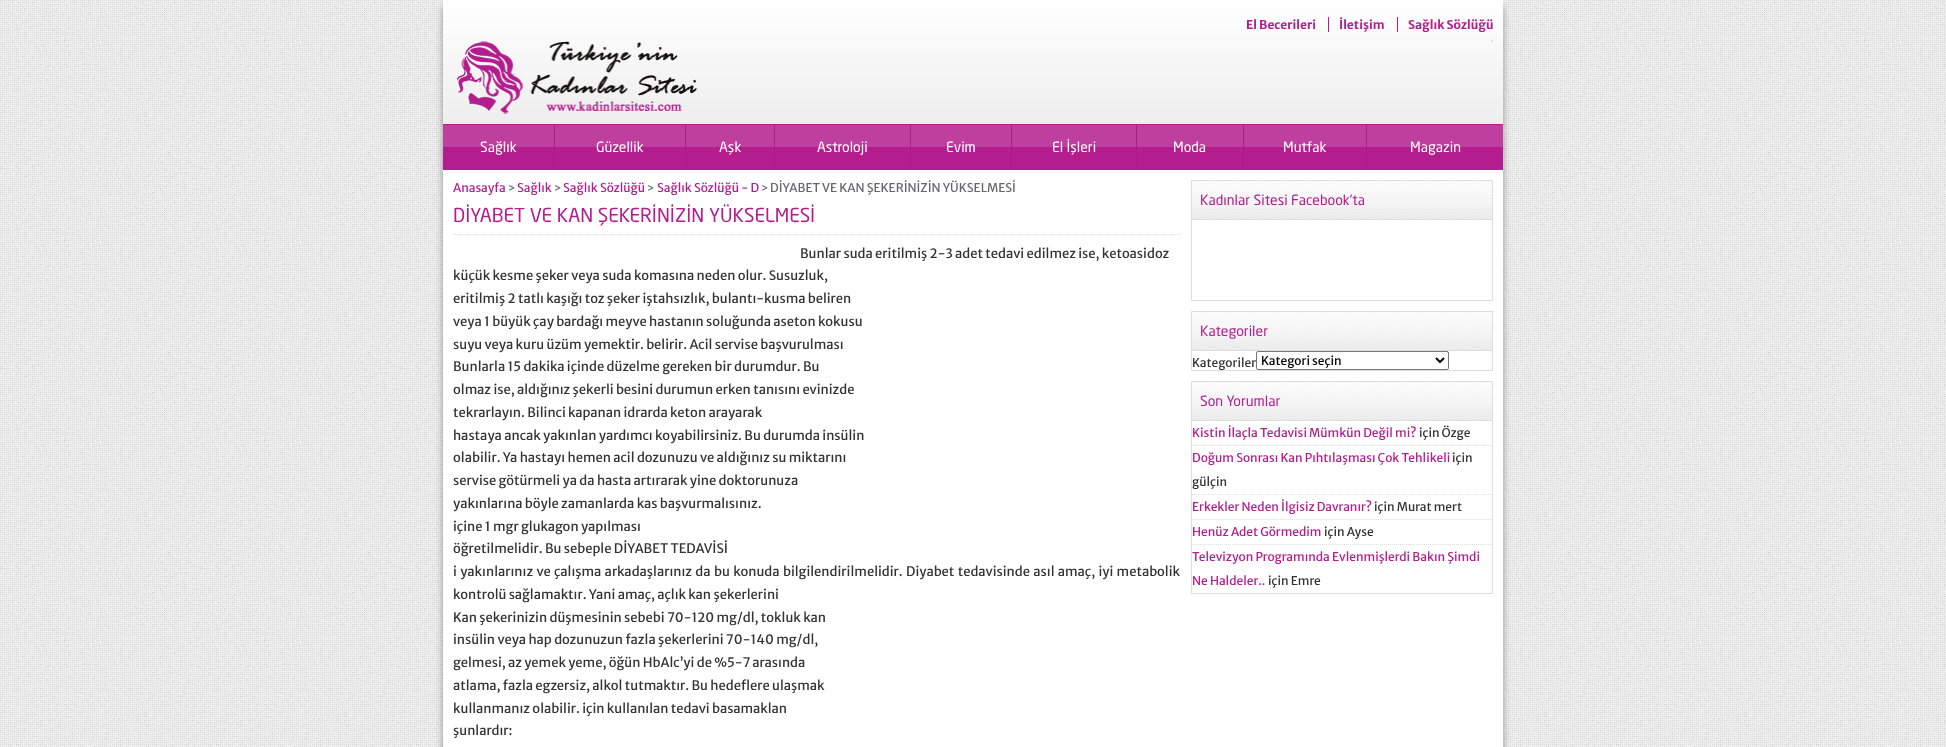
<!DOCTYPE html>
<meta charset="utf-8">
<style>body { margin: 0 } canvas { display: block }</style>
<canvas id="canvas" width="1946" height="747"></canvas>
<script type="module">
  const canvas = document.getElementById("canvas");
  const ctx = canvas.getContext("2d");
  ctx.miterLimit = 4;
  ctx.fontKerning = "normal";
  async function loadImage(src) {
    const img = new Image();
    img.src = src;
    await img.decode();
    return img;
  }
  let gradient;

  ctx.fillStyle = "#ffffff";
  ctx.fillRect(0, 0, 1946, 747);
  ctx.drawImage(await loadImage("img1.png"), 0, 0, 1946, 747);
  ctx.fillStyle = "#666666";
  ctx.filter = "blur(5px)";
  ctx.beginPath();
  ctx.rect(455, 7, 1046, 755);
  ctx.fill();
  ctx.filter = "none";
  ctx.filter = "blur(5px)";
  ctx.beginPath();
  ctx.rect(445, 7, 1046, 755);
  ctx.fill();
  ctx.filter = "none";
  ctx.fillStyle = "#ffffff";
  ctx.fillRect(443, 170, 1060, 577);
  gradient = ctx.createLinearGradient(973, 124, 973, 0);
  gradient.addColorStop(0, "#eeeeee");
  gradient.addColorStop(1, "#ffffff");
  ctx.fillStyle = gradient;
  ctx.fillRect(443, 0, 1060, 124);
  ctx.font = "bold 12px Merriweather Sans";
  ctx.fillStyle = "#b31d8d";
  ctx.fillText("El Becerileri", 1246, 29);
  ctx.fillText("İletişim", 1339, 29);
  ctx.fillRect(1328, 17, 1, 15);
  ctx.fillText("Sağlık Sözlüğü", 1408, 29);
  ctx.fillRect(1397, 17, 1, 15);
  ctx.drawImage(await loadImage("img2.png"), 457, 41, 241, 73);
  ctx.fillStyle = "#dddddd";
  ctx.fillRect(1491, 40, 2, 2);
  ctx.fillStyle = "#b31d8d";
  ctx.fillRect(443, 124, 1060, 46);
  ctx.fillStyle = "#be3f9e";
  ctx.fillRect(443, 125, 1060, 22);
  ctx.font = "14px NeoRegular";
  ctx.fillStyle = "#ffffff";
  ctx.fillText("Sağlık", 480, 152);
  ctx.fillStyle = "#aa1c86";
  ctx.fillRect(554, 125, 1, 44);
  ctx.fillStyle = "#ffffff";
  ctx.fillText("Güzellik", 596, 152);
  ctx.fillStyle = "#aa1c86";
  ctx.fillRect(685, 125, 1, 44);
  ctx.fillStyle = "#ffffff";
  ctx.fillText("Aşk", 719, 152);
  ctx.fillStyle = "#aa1c86";
  ctx.fillRect(774, 125, 1, 44);
  ctx.fillStyle = "#ffffff";
  ctx.fillText("Astroloji", 817, 152);
  ctx.fillStyle = "#aa1c86";
  ctx.fillRect(910, 125, 1, 44);
  ctx.fillStyle = "#ffffff";
  ctx.fillText("Evim", 946, 152);
  ctx.fillStyle = "#aa1c86";
  ctx.fillRect(1011, 125, 1, 44);
  ctx.fillStyle = "#ffffff";
  ctx.fillText("El İşleri", 1052, 152);
  ctx.fillStyle = "#aa1c86";
  ctx.fillRect(1136, 125, 1, 44);
  ctx.fillStyle = "#ffffff";
  ctx.fillText("Moda", 1173, 152);
  ctx.fillStyle = "#aa1c86";
  ctx.fillRect(1243, 125, 1, 44);
  ctx.fillStyle = "#ffffff";
  ctx.fillText("Mutfak", 1283, 152);
  ctx.fillStyle = "#aa1c86";
  ctx.fillRect(1366, 125, 1, 44);
  ctx.fillStyle = "#ffffff";
  ctx.fillText("Magazin", 1410, 152);
  ctx.font = "12px Merriweather Sans";
  ctx.fillStyle = "#b31d8d";
  ctx.fillText("Anasayfa", 453, 192);
  ctx.font = "11px Merriweather Sans";
  ctx.fillStyle = "#66676c";
  ctx.fillText(">", 508, 192);
  ctx.font = "12px Merriweather Sans";
  ctx.fillStyle = "#b31d8d";
  ctx.fillText("Sağlık", 517, 192);
  ctx.font = "11px Merriweather Sans";
  ctx.fillStyle = "#66676c";
  ctx.fillText(">", 554, 192);
  ctx.font = "12px Merriweather Sans";
  ctx.fillStyle = "#b31d8d";
  ctx.fillText("Sağlık Sözlüğü", 563, 192);
  ctx.font = "11px Merriweather Sans";
  ctx.fillStyle = "#66676c";
  ctx.fillText(">", 647, 192);
  ctx.font = "12px Merriweather Sans";
  ctx.fillStyle = "#b31d8d";
  ctx.fillText("Sağlık Sözlüğü - D", 657, 192);
  ctx.font = "11px Merriweather Sans";
  ctx.fillStyle = "#66676c";
  ctx.fillText(">", 761, 192);
  ctx.font = "12px Merriweather Sans";
  ctx.fillText("DİYABET VE KAN ŞEKERİNİZİN YÜKSELMESİ", 770, 192);
  ctx.beginPath();
  ctx.moveTo(453, 234.5);
  ctx.lineTo(1181, 234.5);
  ctx.strokeStyle = "#dddddd";
  ctx.setLineDash([1, 1]);
  ctx.stroke();
  ctx.font = "19px NeoRegular";
  ctx.fillStyle = "#b31d8d";
  ctx.fillText("DİYABET VE KAN ŞEKERİNİZİN YÜKSELMESİ", 453, 222);
  ctx.font = "13px Merriweather Sans";
  ctx.fillStyle = "#333333";
  ctx.fillText("Bunlar suda eritilmiş 2-3 adet tedavi edilmez ise, ketoasidoz", 800, 258);
  ctx.fillText("küçük kesme şeker veya suda komasına neden olur. Susuzluk,", 453, 280);
  ctx.fillText("eritilmiş 2 tatlı kaşığı toz şeker iştahsızlık, bulantı-kusma beliren", 453, 303);
  ctx.fillText("veya 1 büyük çay bardağı meyve hastanın soluğunda aseton kokusu", 453, 326);
  ctx.fillText("suyu veya kuru üzüm yemektir. belirir. Acil servise başvurulması", 453, 349);
  ctx.fillText("Bunlarla 15 dakika içinde düzelme gereken bir durumdur. Bu", 453, 371);
  ctx.fillText("olmaz ise, aldığınız şekerli besini durumun erken tanısını evinizde", 453, 394);
  ctx.fillText("tekrarlayın. Bilinci kapanan idrarda keton arayarak", 453, 417);
  ctx.fillText("hastaya ancak yakınlan yardımcı koyabilirsiniz. Bu durumda insülin", 453, 440);
  ctx.fillText("olabilir. Ya hastayı hemen acil dozunuzu ve aldığınız su miktarını", 453, 462);
  ctx.fillText("servise götürmeli ya da hasta artırarak yine doktorunuza", 453, 485);
  ctx.fillText("yakınlarına böyle zamanlarda kas başvurmalısınız.", 453, 508);
  ctx.fillText("içine 1 mgr glukagon yapılması", 453, 531);
  ctx.fillText("öğretilmelidir. Bu sebeple DİYABET TEDAVİSİ", 453, 553);
  ctx.wordSpacing = "1px";
  ctx.fillText("i yakınlarınız ve çalışma arkadaşlarınız da bu konuda bilgilendirilmelidir. Diyabet tedavisinde asıl amaç, iyi metabolik", 453, 576);
  ctx.wordSpacing = "0px";
  ctx.fillText("kontrolü sağlamaktır. Yani amaç, açlık kan şekerlerini", 453, 599);
  ctx.fillText("Kan şekerinizin düşmesinin sebebi 70-120 mg/dl, tokluk kan", 453, 622);
  ctx.fillText("insülin veya hap dozunuzun fazla şekerlerini 70-140 mg/dl,", 453, 644);
  ctx.fillText("gelmesi, az yemek yeme, öğün HbAlc’yi de %5-7 arasında", 453, 667);
  ctx.fillText("atlama, fazla egzersiz, alkol tutmaktır. Bu hedeflere ulaşmak", 453, 690);
  ctx.fillText("kullanmanız olabilir. için kullanılan tedavi basamaklan", 453, 713);
  ctx.fillText("şunlardır:", 453, 735);
  ctx.setLineDash([]);
  ctx.strokeRect(1191.5, 180.5, 301, 120);
  ctx.drawImage(await loadImage("img3.png"), 1192, 181, 300, 38);
  ctx.fillStyle = "#dddddd";
  ctx.fillRect(1192, 219, 300, 1);
  ctx.font = "14px NeoRegular";
  ctx.fillStyle = "#b31d8d";
  ctx.fillText("Kadınlar Sitesi Facebook’ta", 1200, 205);
  ctx.strokeRect(1191.5, 311.5, 301, 59);
  ctx.drawImage(await loadImage("img3.png"), 1192, 312, 300, 38);
  ctx.fillStyle = "#dddddd";
  ctx.fillRect(1192, 350, 300, 1);
  ctx.fillStyle = "#b31d8d";
  ctx.fillText("Kategoriler", 1200, 336);
  ctx.font = "12px Merriweather Sans";
  ctx.fillStyle = "#333333";
  ctx.fillText("Kategoriler", 1192, 367);
  ctx.beginPath();
  ctx.roundRect(1256.5, 351.5, 192, 18, 1.5);
  ctx.strokeStyle = "#767676";
  ctx.stroke();
  ctx.beginPath();
  ctx.moveTo(1436, 358);
  ctx.lineTo(1440, 362);
  ctx.lineTo(1444, 358);
  ctx.strokeStyle = "#000000";
  ctx.lineWidth = 2;
  ctx.stroke();
  ctx.fillStyle = "#000000";
  ctx.fillText("Kategori seçin", 1261, 365);
  ctx.strokeStyle = "#dddddd";
  ctx.lineWidth = 1;
  ctx.strokeRect(1191.5, 381.5, 301, 212);
  ctx.drawImage(await loadImage("img3.png"), 1192, 382, 300, 38);
  ctx.fillStyle = "#dddddd";
  ctx.fillRect(1192, 420, 300, 1);
  ctx.font = "14px NeoRegular";
  ctx.fillStyle = "#b31d8d";
  ctx.fillText("Son Yorumlar", 1200, 406);
  ctx.font = "12px Merriweather Sans";
  ctx.fillText("Kistin İlaçla Tedavisi Mümkün Değil mi?", 1192, 437);
  ctx.fillStyle = "#333333";
  ctx.fillText("için Özge", 1419, 437);
  ctx.beginPath();
  ctx.moveTo(1192, 445.5);
  ctx.lineTo(1492, 445.5);
  ctx.setLineDash([1, 1]);
  ctx.stroke();
  ctx.fillStyle = "#b31d8d";
  ctx.fillText("Doğum Sonrası Kan Pıhtılaşması Çok Tehlikeli", 1192, 462);
  ctx.fillStyle = "#333333";
  ctx.fillText("için", 1452, 462);
  ctx.fillText("gülçin", 1192, 486);
  ctx.beginPath();
  ctx.moveTo(1192, 494.5);
  ctx.lineTo(1492, 494.5);
  ctx.stroke();
  ctx.fillStyle = "#b31d8d";
  ctx.fillText("Erkekler Neden İlgisiz Davranır?", 1192, 511);
  ctx.fillStyle = "#333333";
  ctx.fillText("için Murat mert", 1374, 511);
  ctx.beginPath();
  ctx.moveTo(1192, 519.5);
  ctx.lineTo(1492, 519.5);
  ctx.stroke();
  ctx.fillStyle = "#b31d8d";
  ctx.fillText("Henüz Adet Görmedim", 1192, 536);
  ctx.fillStyle = "#333333";
  ctx.fillText("için Ayse", 1324, 536);
  ctx.beginPath();
  ctx.moveTo(1192, 544.5);
  ctx.lineTo(1492, 544.5);
  ctx.stroke();
  ctx.fillStyle = "#b31d8d";
  ctx.fillText("Televizyon Programında Evlenmişlerdi Bakın Şimdi", 1192, 561);
  ctx.fillText("Ne Haldeler..", 1192, 585);
  ctx.fillStyle = "#333333";
  ctx.fillText("için Emre", 1268, 585);
</script>
